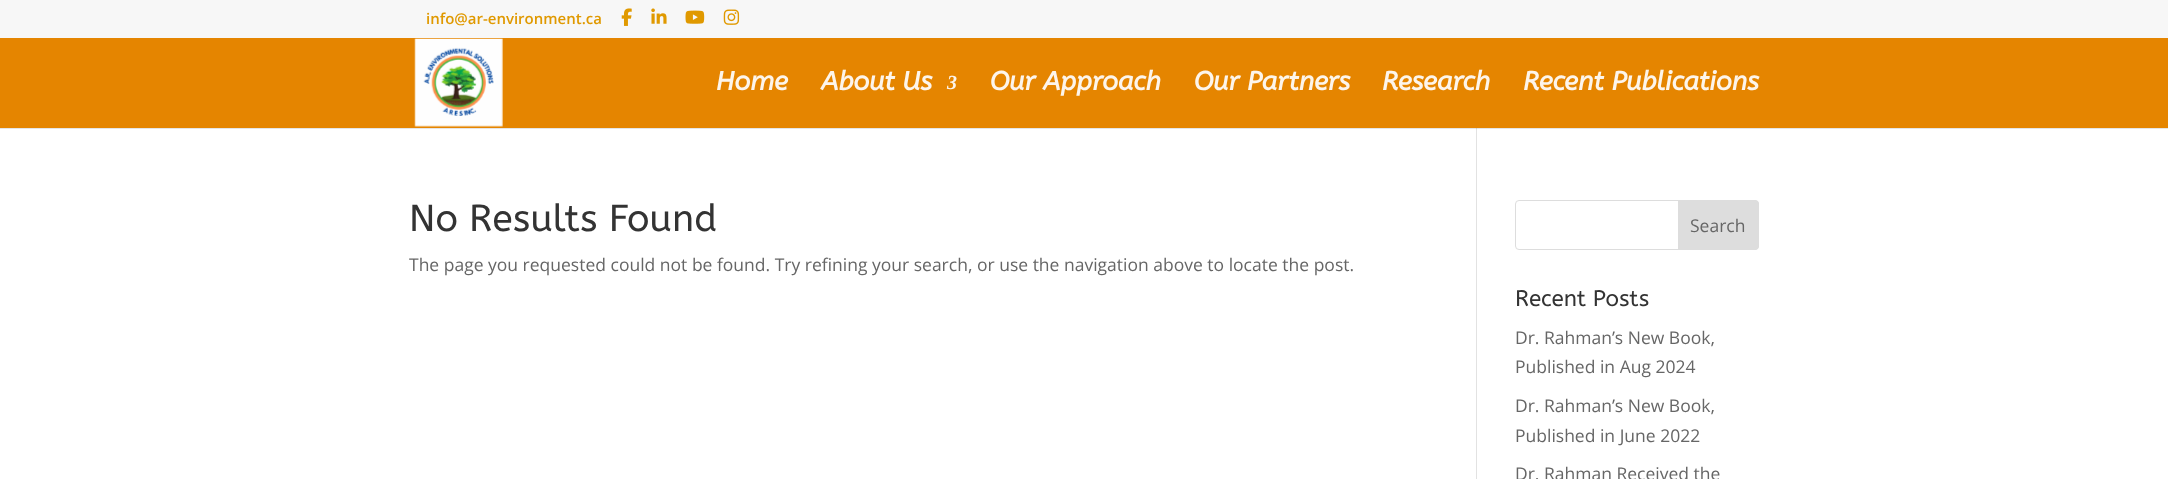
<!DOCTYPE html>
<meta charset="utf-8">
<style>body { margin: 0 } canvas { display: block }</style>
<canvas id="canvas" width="2168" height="479"></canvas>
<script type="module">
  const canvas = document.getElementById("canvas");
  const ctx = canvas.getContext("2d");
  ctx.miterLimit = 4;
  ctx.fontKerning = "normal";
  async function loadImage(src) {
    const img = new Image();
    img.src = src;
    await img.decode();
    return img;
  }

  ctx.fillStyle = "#ffffff";
  ctx.fillRect(0, 0, 2168, 479);
  ctx.fillStyle = "#f7f7f7";
  ctx.fillRect(0, 0, 2168, 38);
  ctx.font = "600 15px Open Sans";
  ctx.fillStyle = "#e09900";
  ctx.fillText("info@ar-environment.ca", 426, 24);
  ctx.drawImage(await loadImage("img1.png"), 621, 8, 11, 18);
  ctx.drawImage(await loadImage("img2.png"), 651, 8, 16, 16);
  ctx.drawImage(await loadImage("img3.png"), 685, 10, 20, 14);
  ctx.drawImage(await loadImage("img4.png"), 723, 9, 17, 16);
  ctx.fillStyle = "#e2e2e2";
  ctx.fillRect(1476, 128, 1, 351);
  ctx.fillStyle = "rgba(0, 0, 0, 0.1)";
  ctx.beginPath();
  ctx.moveTo(0, 128);
  ctx.lineTo(0, 129);
  ctx.lineTo(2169, 129);
  ctx.lineTo(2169, 39);
  ctx.lineTo(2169, 128);
  ctx.closePath();
  ctx.fill();
  ctx.fillStyle = "#e58500";
  ctx.fillRect(0, 38, 2168, 90);
  ctx.drawImage(await loadImage("img5.png"), 414, 38, 89, 89);
  ctx.font = "italic bold 26.25px ABeeZee";
  ctx.fillStyle = "#fdf5eb";
  ctx.fillText("Home", 716, 90);
  ctx.fillText("About Us", 821, 90);
  ctx.font = "italic bold 20px Liberation Serif";
  ctx.fillText("3", 947, 89);
  ctx.font = "italic bold 26.25px ABeeZee";
  ctx.fillText("Our Approach", 990, 90);
  ctx.fillText("Our Partners", 1194, 90);
  ctx.fillText("Research", 1382, 90);
  ctx.fillText("Recent Publications", 1523, 90);
  ctx.font = "37.5px ABeeZee";
  ctx.fillStyle = "#333333";
  ctx.fillText("No Results Found", 409, 231);
  ctx.font = "17.5px Open Sans";
  ctx.fillStyle = "#666666";
  ctx.fillText("The page you requested could not be found. Try refining your search, or use the navigation above to locate the post.", 409, 271);
  ctx.beginPath();
  ctx.roundRect(1515.5, 200.5, 243, 49, 3.5);
  ctx.strokeStyle = "#dddddd";
  ctx.stroke();
  ctx.fillStyle = "#dddddd";
  ctx.beginPath();
  ctx.roundRect(1678.5, 200.5, 80, 49, [0, 3.5, 3.5, 0]);
  ctx.fill();
  ctx.stroke();
  ctx.fillStyle = "#666666";
  ctx.fillText("Search", 1690, 232);
  ctx.font = "22.5px ABeeZee";
  ctx.fillStyle = "#333333";
  ctx.fillText("Recent Posts", 1515, 306);
  ctx.font = "17.5px Open Sans";
  ctx.fillStyle = "#666666";
  ctx.fillText("Dr. Rahman’s New Book,", 1515, 344);
  ctx.fillText("Published in Aug 2024", 1515, 373);
  ctx.fillText("Dr. Rahman’s New Book,", 1515, 412);
  ctx.fillText("Published in June 2022", 1515, 442);
  ctx.fillText("Dr. Rahman Received the", 1515, 480);
</script>
